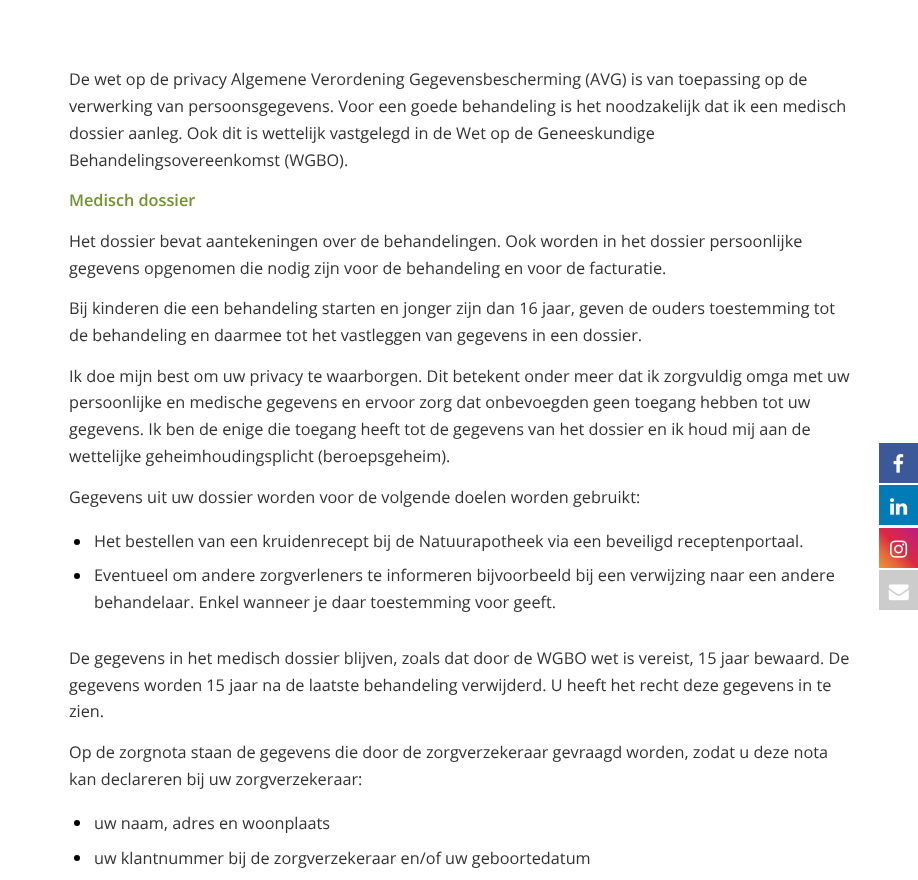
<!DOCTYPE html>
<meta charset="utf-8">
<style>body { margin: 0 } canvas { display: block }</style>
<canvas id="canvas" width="918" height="880"></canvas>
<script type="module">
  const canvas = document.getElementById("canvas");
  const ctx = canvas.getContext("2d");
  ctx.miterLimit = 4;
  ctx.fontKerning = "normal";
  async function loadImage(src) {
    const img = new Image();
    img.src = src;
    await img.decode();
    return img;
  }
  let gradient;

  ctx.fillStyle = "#ffffff";
  ctx.fillRect(0, 0, 918, 880);
  ctx.font = "16.25px Open Sans";
  ctx.fillStyle = "#333333";
  ctx.fillText("De wet op de privacy Algemene Verordening Gegevensbescherming (AVG) is van toepassing op de", 69, 85);
  ctx.fillText("verwerking van persoonsgegevens. Voor een goede behandeling is het noodzakelijk dat ik een medisch", 69, 112);
  ctx.fillText("dossier aanleg. Ook dit is wettelijk vastgelegd in de Wet op de Geneeskundige", 69, 139);
  ctx.fillText("Behandelingsovereenkomst (WGBO).", 69, 166);
  ctx.font = "600 16.25px Open Sans";
  ctx.fillStyle = "#719430";
  ctx.fillText("Medisch dossier", 69, 206);
  ctx.font = "16.25px Open Sans";
  ctx.fillStyle = "#333333";
  ctx.fillText("Het dossier bevat aantekeningen over de behandelingen. Ook worden in het dossier persoonlijke", 69, 247);
  ctx.fillText("gegevens opgenomen die nodig zijn voor de behandeling en voor de facturatie.", 69, 274);
  ctx.fillText("Bij kinderen die een behandeling starten en jonger zijn dan 16 jaar, geven de ouders toestemming tot", 69, 314);
  ctx.fillText("de behandeling en daarmee tot het vastleggen van gegevens in een dossier.", 69, 341);
  ctx.fillText("Ik doe mijn best om uw privacy te waarborgen. Dit betekent onder meer dat ik zorgvuldig omga met uw", 69, 382);
  ctx.fillText("persoonlijke en medische gegevens en ervoor zorg dat onbevoegden geen toegang hebben tot uw", 69, 408);
  ctx.fillText("gegevens. Ik ben de enige die toegang heeft tot de gegevens van het dossier en ik houd mij aan de", 69, 435);
  ctx.fillText("wettelijke geheimhoudingsplicht (beroepsgeheim).", 69, 462);
  ctx.fillText("Gegevens uit uw dossier worden voor de volgende doelen worden gebruikt:", 69, 503);
  ctx.fillStyle = "#000000";
  ctx.beginPath();
  ctx.arc(77, 542, 3, 0, Math.PI * 2);
  ctx.fill();
  ctx.fillStyle = "#333333";
  ctx.fillText("Het bestellen van een kruidenrecept bij de Natuurapotheek via een beveiligd receptenportaal.", 94, 547);
  ctx.fillStyle = "#000000";
  ctx.beginPath();
  ctx.arc(77, 576, 3, 0, Math.PI * 2);
  ctx.fill();
  ctx.fillStyle = "#333333";
  ctx.fillText("Eventueel om andere zorgverleners te informeren bijvoorbeeld bij een verwijzing naar een andere", 94, 581);
  ctx.fillText("behandelaar. Enkel wanneer je daar toestemming voor geeft.", 94, 608);
  ctx.fillText("De gegevens in het medisch dossier blijven, zoals dat door de WGBO wet is vereist, 15 jaar bewaard. De", 69, 664);
  ctx.fillText("gegevens worden 15 jaar na de laatste behandeling verwijderd. U heeft het recht deze gegevens in te", 69, 691);
  ctx.fillText("zien.", 69, 717);
  ctx.fillText("Op de zorgnota staan de gegevens die door de zorgverzekeraar gevraagd worden, zodat u deze nota", 69, 758);
  ctx.fillText("kan declareren bij uw zorgverzekeraar:", 69, 785);
  ctx.fillStyle = "#000000";
  ctx.beginPath();
  ctx.arc(77, 823, 3, 0, Math.PI * 2);
  ctx.fill();
  ctx.fillStyle = "#333333";
  ctx.fillText("uw naam, adres en woonplaats", 94, 829);
  ctx.fillStyle = "#000000";
  ctx.beginPath();
  ctx.arc(77, 858, 3, 0, Math.PI * 2);
  ctx.fill();
  ctx.fillStyle = "#333333";
  ctx.fillText("uw klantnummer bij de zorgverzekeraar en/of uw geboortedatum", 94, 864);
  ctx.fillStyle = "#3b5998";
  ctx.fillRect(879, 443, 39, 40);
  ctx.drawImage(await loadImage("img1.png"), 893, 454, 11, 19);
  ctx.fillStyle = "#007bb6";
  ctx.fillRect(879, 485, 39, 40);
  ctx.drawImage(await loadImage("img2.png"), 890, 498, 18, 17);
  gradient = ctx.createLinearGradient(879, 568, 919, 528);
  gradient.addColorStop(0, "#f09433");
  gradient.addColorStop(0.25, "#e6683c");
  gradient.addColorStop(0.5, "#dc2743");
  gradient.addColorStop(0.75, "#cc2366");
  gradient.addColorStop(1, "#bc1888");
  ctx.fillStyle = gradient;
  ctx.fillRect(879, 528, 39, 40);
  ctx.drawImage(await loadImage("img3.png"), 890, 540, 18, 18);
  ctx.fillStyle = "#cccccc";
  ctx.fillRect(879, 570, 39, 40);
  ctx.drawImage(await loadImage("img4.png"), 888, 584, 21, 17);
</script>
